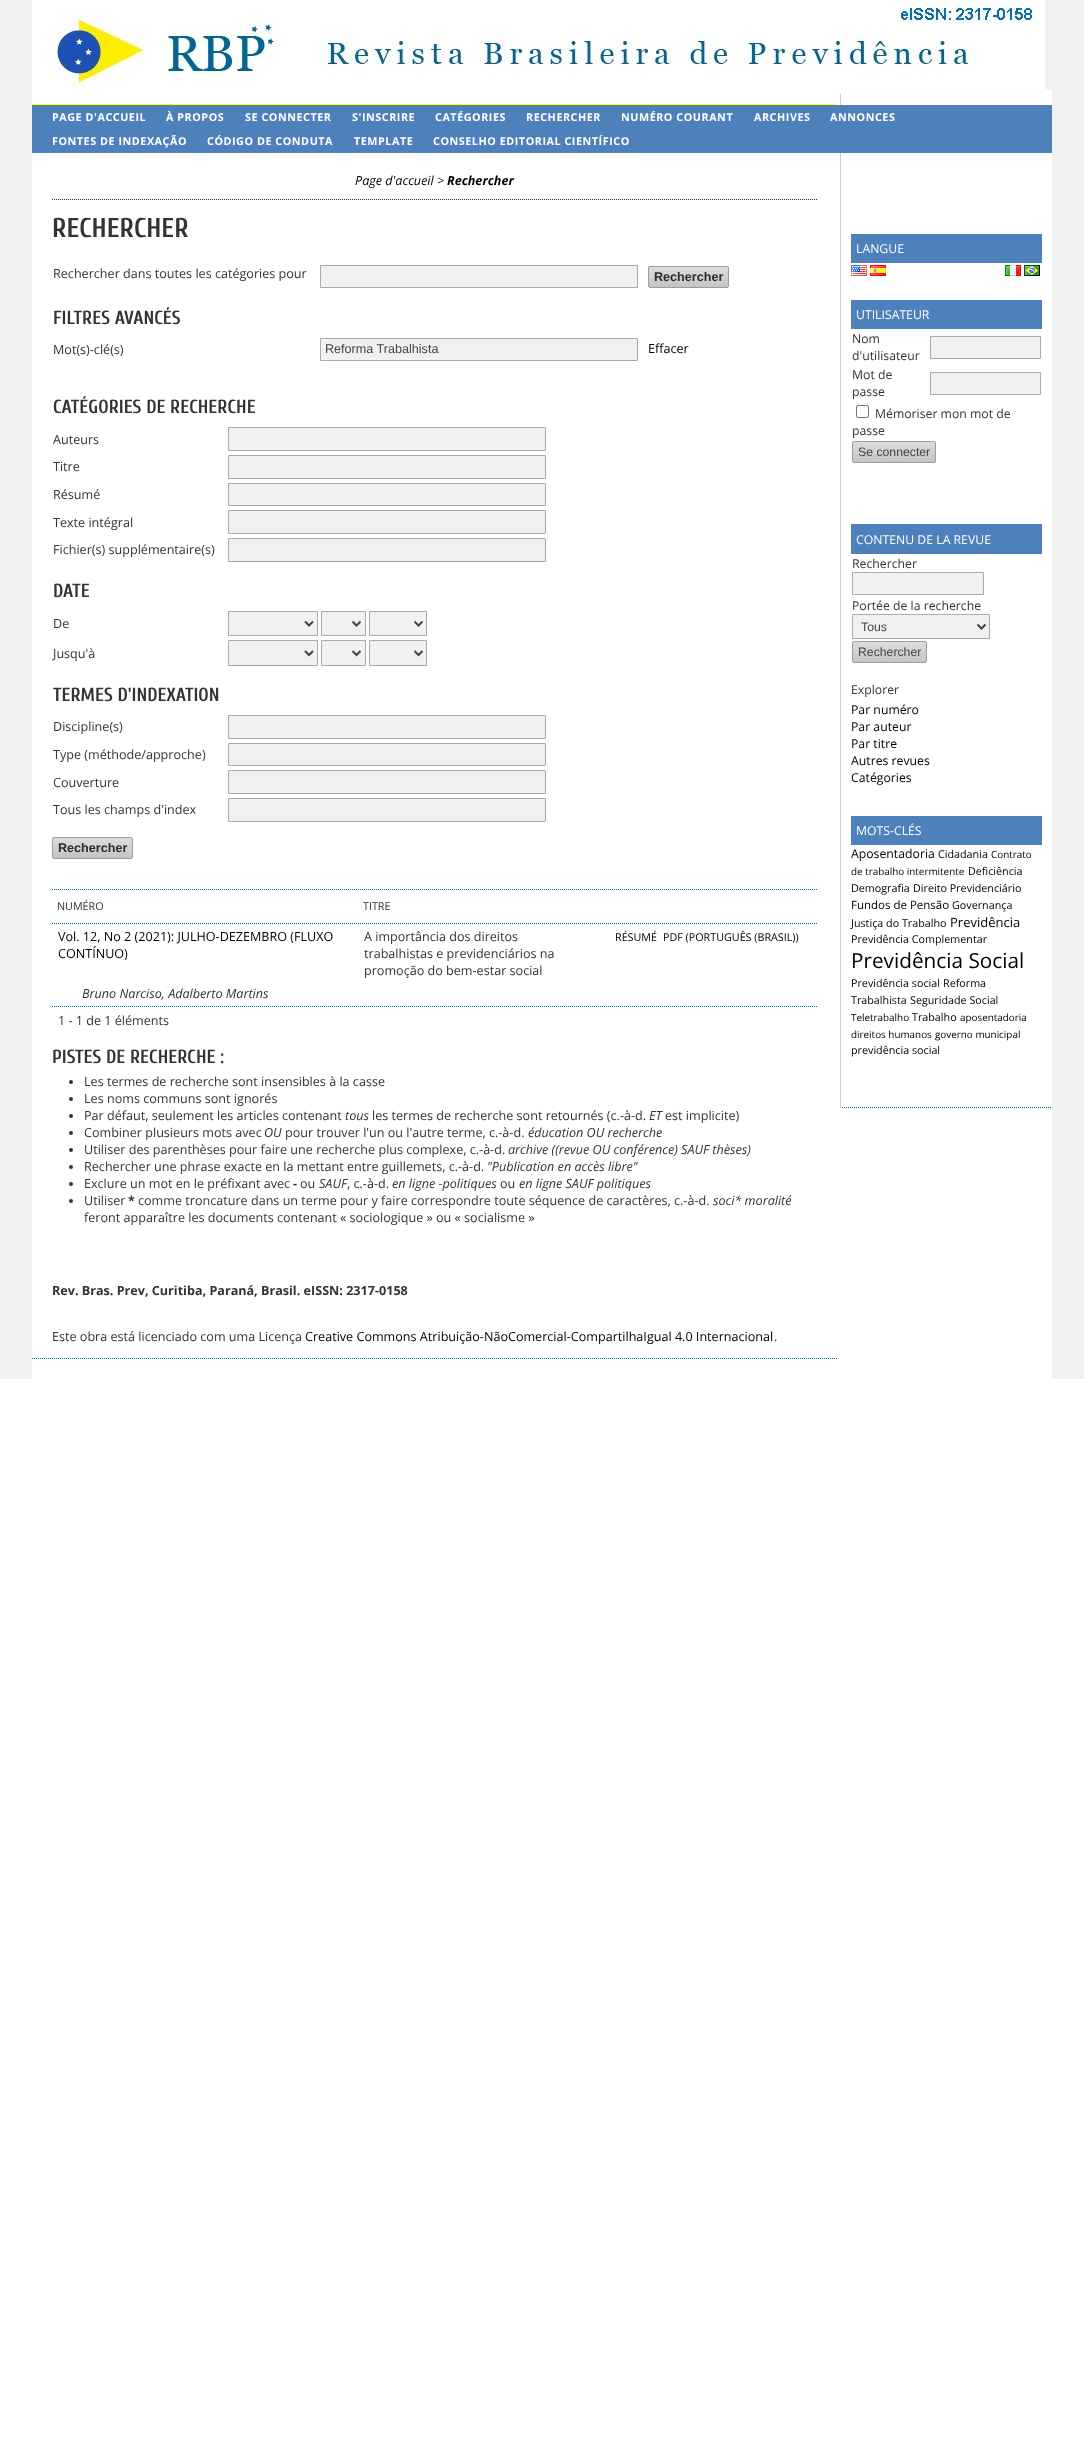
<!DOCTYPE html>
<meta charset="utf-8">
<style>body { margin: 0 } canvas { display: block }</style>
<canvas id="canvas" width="1084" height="2459"></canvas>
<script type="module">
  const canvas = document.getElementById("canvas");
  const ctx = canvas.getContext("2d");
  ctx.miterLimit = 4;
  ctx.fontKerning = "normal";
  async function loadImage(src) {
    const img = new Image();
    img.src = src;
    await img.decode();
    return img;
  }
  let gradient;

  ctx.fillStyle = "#ffffff";
  ctx.fillRect(0, 0, 1084, 2459);
  ctx.fillStyle = "#f1f1f1";
  ctx.fillRect(0, 0, 1084, 1379);
  ctx.drawImage(await loadImage("img1.png"), 32, 0, 1013, 89);
  ctx.fillStyle = "#ffffff";
  ctx.fillRect(32, 89, 1020, 1290);
  ctx.fillStyle = "#ffff00";
  ctx.fillRect(32, 104, 805, 1);
  ctx.beginPath();
  ctx.moveTo(32, 1358.5);
  ctx.lineTo(837, 1358.5);
  ctx.strokeStyle = "#006699";
  ctx.setLineDash([1, 1]);
  ctx.stroke();
  ctx.beginPath();
  ctx.moveTo(840, 1107.5);
  ctx.lineTo(1052, 1107.5);
  ctx.stroke();
  ctx.fillStyle = "#cccccc";
  ctx.fillRect(840, 94, 1, 1014);
  ctx.fillStyle = "#4e80bb";
  ctx.fillRect(32, 105, 1020, 48);
  ctx.letterSpacing = "0.55px";
  ctx.font = "bold 10.75px Open Sans";
  ctx.fillStyle = "#ffffff";
  ctx.fillText("PAGE D'ACCUEIL", 52, 121);
  ctx.fillText("À PROPOS", 166, 121);
  ctx.fillText("SE CONNECTER", 245, 121);
  ctx.fillText("S'INSCRIRE", 352, 121);
  ctx.fillText("CATÉGORIES", 435, 121);
  ctx.fillText("RECHERCHER", 526, 121);
  ctx.fillText("NUMÉRO COURANT", 621, 121);
  ctx.fillText("ARCHIVES", 754, 121);
  ctx.fillText("ANNONCES", 830, 121);
  ctx.fillText("FONTES DE INDEXAÇÃO", 52, 145);
  ctx.fillText("CÓDIGO DE CONDUTA", 207, 145);
  ctx.fillText("TEMPLATE", 354, 145);
  ctx.fillText("CONSELHO EDITORIAL CIENTÍFICO", 433, 145);
  ctx.beginPath();
  ctx.moveTo(52, 199.5);
  ctx.lineTo(817, 199.5);
  ctx.strokeStyle = "#333333";
  ctx.stroke();
  ctx.letterSpacing = "0px";
  ctx.font = "italic 12.6px Open Sans";
  ctx.fillStyle = "#000000";
  ctx.fillText("Page d'accueil", 355, 185);
  ctx.fillStyle = "#333333";
  ctx.fillText(">", 437, 185);
  ctx.font = "italic bold 12.6px Open Sans";
  ctx.fillStyle = "#000000";
  ctx.fillText("Rechercher", 447, 185);
  ctx.font = "bold 27px Cuprum";
  ctx.fillStyle = "#333333";
  ctx.fillText("RECHERCHER", 52, 237);
  ctx.font = "12.6px Open Sans";
  ctx.fillText("Rechercher dans toutes les catégories pour", 53, 278);
  ctx.fillStyle = "#f1f1f1";
  ctx.beginPath();
  ctx.rect(320.5, 265.5, 317, 22);
  ctx.fill();
  ctx.strokeStyle = "#aaaaaa";
  ctx.setLineDash([]);
  ctx.stroke();
  ctx.save();
  ctx.beginPath();
  ctx.roundRect(648, 266, 81, 22, 2);
  ctx.clip();
  gradient = ctx.createLinearGradient(689, 267, 689, 287);
  gradient.addColorStop(0, "#dddddd");
  gradient.addColorStop(1, "#c4c4c4");
  ctx.fillStyle = gradient;
  ctx.fillRect(648, 267, 81, 20);
  ctx.restore();
  ctx.beginPath();
  ctx.roundRect(648.5, 266.5, 80, 21, 1.5);
  ctx.strokeStyle = "#9d9d9d";
  ctx.stroke();
  ctx.font = "bold 12.6px Liberation Sans";
  ctx.fillStyle = "#2b2b2b";
  ctx.fillText("Rechercher", 654, 281);
  ctx.font = "bold 18.9px Cuprum";
  ctx.fillStyle = "#333333";
  ctx.fillText("FILTRES AVANCÉS", 53, 324);
  ctx.font = "12.6px Open Sans";
  ctx.fillText("Mot(s)-clé(s)", 53, 354);
  ctx.fillStyle = "#f1f1f1";
  ctx.beginPath();
  ctx.rect(320.5, 338.5, 317, 22);
  ctx.fill();
  ctx.strokeStyle = "#aaaaaa";
  ctx.stroke();
  ctx.font = "12.6px Liberation Sans";
  ctx.fillStyle = "#444444";
  ctx.fillText("Reforma Trabalhista", 325, 353);
  ctx.font = "12.6px Open Sans";
  ctx.fillStyle = "#000000";
  ctx.fillText("Effacer", 648, 353);
  ctx.font = "bold 18.9px Cuprum";
  ctx.fillStyle = "#333333";
  ctx.fillText("CATÉGORIES DE RECHERCHE", 53, 413);
  ctx.font = "12.6px Open Sans";
  ctx.fillText("Auteurs", 53, 444);
  ctx.fillStyle = "#f1f1f1";
  ctx.beginPath();
  ctx.rect(228.5, 427.5, 317, 23);
  ctx.fill();
  ctx.stroke();
  ctx.fillStyle = "#333333";
  ctx.fillText("Titre", 53, 471);
  ctx.fillStyle = "#f1f1f1";
  ctx.beginPath();
  ctx.rect(228.5, 455.5, 317, 23);
  ctx.fill();
  ctx.stroke();
  ctx.fillStyle = "#333333";
  ctx.fillText("Résumé", 53, 499);
  ctx.fillStyle = "#f1f1f1";
  ctx.beginPath();
  ctx.rect(228.5, 483.5, 317, 22);
  ctx.fill();
  ctx.stroke();
  ctx.fillStyle = "#333333";
  ctx.fillText("Texte intégral", 53, 527);
  ctx.fillStyle = "#f1f1f1";
  ctx.beginPath();
  ctx.rect(228.5, 510.5, 317, 23);
  ctx.fill();
  ctx.stroke();
  ctx.fillStyle = "#333333";
  ctx.fillText("Fichier(s) supplémentaire(s)", 53, 554);
  ctx.fillStyle = "#f1f1f1";
  ctx.beginPath();
  ctx.rect(228.5, 538.5, 317, 23);
  ctx.fill();
  ctx.stroke();
  ctx.font = "bold 18.9px Cuprum";
  ctx.fillStyle = "#333333";
  ctx.fillText("DATE", 53, 597);
  ctx.font = "12.6px Open Sans";
  ctx.fillText("De", 53, 628);
  ctx.fillStyle = "#f1f1f1";
  ctx.beginPath();
  ctx.rect(228.5, 611.5, 89, 24);
  ctx.fill();
  ctx.stroke();
  ctx.beginPath();
  ctx.moveTo(305, 621.5);
  ctx.lineTo(309, 625.5);
  ctx.lineTo(313, 621.5);
  ctx.strokeStyle = "#444444";
  ctx.lineWidth = 2;
  ctx.stroke();
  ctx.beginPath();
  ctx.rect(321.5, 611.5, 44, 24);
  ctx.fill();
  ctx.strokeStyle = "#aaaaaa";
  ctx.lineWidth = 1;
  ctx.stroke();
  ctx.beginPath();
  ctx.moveTo(352.5, 621.5);
  ctx.lineTo(356.5, 625.5);
  ctx.lineTo(360.5, 621.5);
  ctx.strokeStyle = "#444444";
  ctx.lineWidth = 2;
  ctx.stroke();
  ctx.beginPath();
  ctx.rect(369.5, 611.5, 57, 24);
  ctx.fill();
  ctx.strokeStyle = "#aaaaaa";
  ctx.lineWidth = 1;
  ctx.stroke();
  ctx.beginPath();
  ctx.moveTo(414.5, 621.5);
  ctx.lineTo(418.5, 625.5);
  ctx.lineTo(422.5, 621.5);
  ctx.strokeStyle = "#444444";
  ctx.lineWidth = 2;
  ctx.stroke();
  ctx.fillStyle = "#333333";
  ctx.fillText("Jusqu'à", 53, 658);
  ctx.fillStyle = "#f1f1f1";
  ctx.beginPath();
  ctx.rect(228.5, 640.5, 89, 25);
  ctx.fill();
  ctx.strokeStyle = "#aaaaaa";
  ctx.lineWidth = 1;
  ctx.stroke();
  ctx.beginPath();
  ctx.moveTo(305, 651);
  ctx.lineTo(309, 655);
  ctx.lineTo(313, 651);
  ctx.strokeStyle = "#444444";
  ctx.lineWidth = 2;
  ctx.stroke();
  ctx.beginPath();
  ctx.rect(321.5, 640.5, 44, 25);
  ctx.fill();
  ctx.strokeStyle = "#aaaaaa";
  ctx.lineWidth = 1;
  ctx.stroke();
  ctx.beginPath();
  ctx.moveTo(352.5, 651);
  ctx.lineTo(356.5, 655);
  ctx.lineTo(360.5, 651);
  ctx.strokeStyle = "#444444";
  ctx.lineWidth = 2;
  ctx.stroke();
  ctx.beginPath();
  ctx.rect(369.5, 640.5, 57, 25);
  ctx.fill();
  ctx.strokeStyle = "#aaaaaa";
  ctx.lineWidth = 1;
  ctx.stroke();
  ctx.beginPath();
  ctx.moveTo(414.5, 651);
  ctx.lineTo(418.5, 655);
  ctx.lineTo(422.5, 651);
  ctx.strokeStyle = "#444444";
  ctx.lineWidth = 2;
  ctx.stroke();
  ctx.font = "bold 18.9px Cuprum";
  ctx.fillStyle = "#333333";
  ctx.fillText("TERMES D'INDEXATION", 53, 701);
  ctx.font = "12.6px Open Sans";
  ctx.fillText("Discipline(s)", 53, 731);
  ctx.fillStyle = "#f1f1f1";
  ctx.beginPath();
  ctx.rect(228.5, 715.5, 317, 23);
  ctx.fill();
  ctx.strokeStyle = "#aaaaaa";
  ctx.lineWidth = 1;
  ctx.stroke();
  ctx.fillStyle = "#333333";
  ctx.fillText("Type (méthode/approche)", 53, 759);
  ctx.fillStyle = "#f1f1f1";
  ctx.beginPath();
  ctx.rect(228.5, 743.5, 317, 22);
  ctx.fill();
  ctx.stroke();
  ctx.fillStyle = "#333333";
  ctx.fillText("Couverture", 53, 787);
  ctx.fillStyle = "#f1f1f1";
  ctx.beginPath();
  ctx.rect(228.5, 770.5, 317, 23);
  ctx.fill();
  ctx.stroke();
  ctx.fillStyle = "#333333";
  ctx.fillText("Tous les champs d'index", 53, 814);
  ctx.fillStyle = "#f1f1f1";
  ctx.beginPath();
  ctx.rect(228.5, 798.5, 317, 23);
  ctx.fill();
  ctx.stroke();
  ctx.save();
  ctx.beginPath();
  ctx.roundRect(52, 837, 81, 22, 2);
  ctx.clip();
  gradient = ctx.createLinearGradient(93, 838, 93, 858);
  gradient.addColorStop(0, "#dddddd");
  gradient.addColorStop(1, "#c4c4c4");
  ctx.fillStyle = gradient;
  ctx.fillRect(52, 838, 81, 20);
  ctx.restore();
  ctx.beginPath();
  ctx.roundRect(52.5, 837.5, 80, 21, 1.5);
  ctx.strokeStyle = "#9d9d9d";
  ctx.stroke();
  ctx.font = "bold 12.6px Liberation Sans";
  ctx.fillStyle = "#2b2b2b";
  ctx.fillText("Rechercher", 58, 852);
  ctx.beginPath();
  ctx.moveTo(52, 889.5);
  ctx.lineTo(817, 889.5);
  ctx.strokeStyle = "#006699";
  ctx.setLineDash([1, 1]);
  ctx.stroke();
  ctx.font = "10.75px Open Sans";
  ctx.fillStyle = "#333333";
  ctx.fillText("NUMÉRO", 57, 910);
  ctx.fillText("TITRE", 363, 910);
  ctx.beginPath();
  ctx.moveTo(52, 923.5);
  ctx.lineTo(817, 923.5);
  ctx.stroke();
  ctx.font = "12.6px Open Sans";
  ctx.fillStyle = "#000000";
  ctx.fillText("Vol. 12, No 2 (2021): JULHO-DEZEMBRO (FLUXO", 58, 941);
  ctx.fillText("CONTÍNUO)", 58, 958);
  ctx.fillStyle = "#333333";
  ctx.fillText("A importância dos direitos", 364, 941);
  ctx.fillText("trabalhistas e previdenciários na", 364, 958);
  ctx.fillText("promoção do bem-estar social", 364, 975);
  ctx.font = "10.75px Open Sans";
  ctx.fillStyle = "#000000";
  ctx.fillText("RÉSUMÉ", 615, 941);
  ctx.fillText("PDF (PORTUGUÊS (BRASIL))", 663, 941);
  ctx.font = "italic 12.6px Open Sans";
  ctx.fillStyle = "#333333";
  ctx.fillText("Bruno Narciso, Adalberto Martins", 82, 998);
  ctx.beginPath();
  ctx.moveTo(52, 1006.5);
  ctx.lineTo(817, 1006.5);
  ctx.stroke();
  ctx.font = "12.6px Open Sans";
  ctx.fillText("1 - 1 de 1 éléments", 58, 1025);
  ctx.font = "bold 18.9px Cuprum";
  ctx.fillText("PISTES DE RECHERCHE :", 52, 1063);
  ctx.beginPath();
  ctx.arc(71, 1082, 2, 0, Math.PI * 2);
  ctx.fill();
  ctx.font = "12.6px Open Sans";
  ctx.fillText("Les termes de recherche sont insensibles à la casse", 84, 1086);
  ctx.beginPath();
  ctx.arc(71, 1099, 2, 0, Math.PI * 2);
  ctx.fill();
  ctx.fillText("Les noms communs sont ignorés", 84, 1103);
  ctx.beginPath();
  ctx.arc(71, 1116, 2, 0, Math.PI * 2);
  ctx.fill();
  ctx.fillText("Par défaut, seulement les articles contenant", 84, 1120);
  ctx.font = "italic 12.6px Open Sans";
  ctx.fillText("tous", 345, 1120);
  ctx.font = "12.6px Open Sans";
  ctx.fillText("les termes de recherche sont retournés (c.-à-d.", 372, 1120);
  ctx.font = "italic 12.6px Open Sans";
  ctx.fillText("ET", 649, 1120);
  ctx.font = "12.6px Open Sans";
  ctx.fillText("est implicite)", 665, 1120);
  ctx.beginPath();
  ctx.arc(71, 1133, 2, 0, Math.PI * 2);
  ctx.fill();
  ctx.fillText("Combiner plusieurs mots avec", 84, 1137);
  ctx.font = "italic 12.6px Open Sans";
  ctx.fillText("OU", 264, 1137);
  ctx.font = "12.6px Open Sans";
  ctx.fillText("pour trouver l'un ou l'autre terme, c.-à-d.", 285, 1137);
  ctx.font = "italic 12.6px Open Sans";
  ctx.fillText("éducation OU recherche", 528, 1137);
  ctx.beginPath();
  ctx.arc(71, 1150, 2, 0, Math.PI * 2);
  ctx.fill();
  ctx.font = "12.6px Open Sans";
  ctx.fillText("Utiliser des parenthèses pour faire une recherche plus complexe, c.-à-d.", 84, 1154);
  ctx.font = "italic 12.6px Open Sans";
  ctx.fillText("archive ((revue OU conférence) SAUF thèses)", 508, 1154);
  ctx.beginPath();
  ctx.arc(71, 1167, 2, 0, Math.PI * 2);
  ctx.fill();
  ctx.font = "12.6px Open Sans";
  ctx.fillText("Rechercher une phrase exacte en la mettant entre guillemets, c.-à-d.", 84, 1171);
  ctx.font = "italic 12.6px Open Sans";
  ctx.fillText("\"Publication en accès libre\"", 487, 1171);
  ctx.beginPath();
  ctx.arc(71, 1184, 2, 0, Math.PI * 2);
  ctx.fill();
  ctx.font = "12.6px Open Sans";
  ctx.fillText("Exclure un mot en le préfixant avec", 84, 1188);
  ctx.font = "bold 12.6px Open Sans";
  ctx.fillText("-", 293, 1188);
  ctx.font = "12.6px Open Sans";
  ctx.fillText("ou", 300, 1188);
  ctx.font = "italic 12.6px Open Sans";
  ctx.fillText("SAUF", 319, 1188);
  ctx.font = "12.6px Open Sans";
  ctx.fillText(", c.-à-d.", 347, 1188);
  ctx.font = "italic 12.6px Open Sans";
  ctx.fillText("en ligne -politiques", 392, 1188);
  ctx.font = "12.6px Open Sans";
  ctx.fillText("ou", 500, 1188);
  ctx.font = "italic 12.6px Open Sans";
  ctx.fillText("en ligne SAUF politiques", 519, 1188);
  ctx.beginPath();
  ctx.arc(71, 1201, 2, 0, Math.PI * 2);
  ctx.fill();
  ctx.font = "12.6px Open Sans";
  ctx.fillText("Utiliser", 84, 1205);
  ctx.font = "bold 12.6px Open Sans";
  ctx.fillText("*", 128, 1205);
  ctx.font = "12.6px Open Sans";
  ctx.fillText("comme troncature dans un terme pour y faire correspondre toute séquence de caractères, c.-à-d.", 138, 1205);
  ctx.font = "italic 12.6px Open Sans";
  ctx.fillText("soci* moralité", 713, 1205);
  ctx.font = "12.6px Open Sans";
  ctx.fillText("feront apparaître les documents contenant « sociologique » ou « socialisme »", 84, 1222);
  ctx.font = "bold 12.6px Open Sans";
  ctx.fillText("Rev. Bras. Prev, Curitiba, Paraná, Brasil. eISSN: 2317-0158", 52, 1295);
  ctx.font = "12.6px Open Sans";
  ctx.fillText("Este obra está licenciado com uma Licença", 52, 1341);
  ctx.fillStyle = "#000000";
  ctx.fillText("Creative Commons Atribuição-NãoComercial-CompartilhaIgual 4.0 Internacional", 305, 1341);
  ctx.fillStyle = "#333333";
  ctx.fillText(".", 774, 1341);
  ctx.fillStyle = "#4e80bb";
  ctx.fillRect(851, 234, 191, 29);
  ctx.font = "12.25px Open Sans";
  ctx.fillStyle = "#ffffff";
  ctx.fillText("LANGUE", 856, 253);
  ctx.drawImage(await loadImage("img2.png"), 851, 265, 16, 11);
  ctx.drawImage(await loadImage("img3.png"), 870, 265, 16, 11);
  ctx.drawImage(await loadImage("img4.png"), 1005, 265, 16, 11);
  ctx.drawImage(await loadImage("img5.png"), 1024, 265, 16, 11);
  ctx.fillStyle = "#4e80bb";
  ctx.fillRect(851, 300, 191, 29);
  ctx.fillStyle = "#ffffff";
  ctx.fillText("UTILISATEUR", 856, 319);
  ctx.fillStyle = "#333333";
  ctx.fillText("Nom", 852, 343);
  ctx.fillText("d'utilisateur", 852, 360);
  ctx.fillStyle = "#f1f1f1";
  ctx.beginPath();
  ctx.rect(930.5, 336.5, 110, 22);
  ctx.fill();
  ctx.strokeStyle = "#aaaaaa";
  ctx.setLineDash([]);
  ctx.stroke();
  ctx.fillStyle = "#333333";
  ctx.fillText("Mot de", 852, 379);
  ctx.fillText("passe", 852, 396);
  ctx.fillStyle = "#f1f1f1";
  ctx.beginPath();
  ctx.rect(930.5, 372.5, 110, 22);
  ctx.fill();
  ctx.stroke();
  ctx.beginPath();
  ctx.roundRect(856.5, 405.5, 12, 12, 1.5);
  ctx.strokeStyle = "#767676";
  ctx.stroke();
  ctx.fillStyle = "#333333";
  ctx.fillText("Mémoriser mon mot de", 875, 418);
  ctx.fillText("passe", 852, 435);
  ctx.save();
  ctx.beginPath();
  ctx.roundRect(852, 441, 84, 22, 2);
  ctx.clip();
  gradient = ctx.createLinearGradient(894, 442, 894, 462);
  gradient.addColorStop(0, "#dddddd");
  gradient.addColorStop(1, "#c4c4c4");
  ctx.fillStyle = gradient;
  ctx.fillRect(852, 442, 84, 20);
  ctx.restore();
  ctx.beginPath();
  ctx.roundRect(852.5, 441.5, 83, 21, 1.5);
  ctx.strokeStyle = "#9d9d9d";
  ctx.stroke();
  ctx.font = "12.25px Liberation Sans";
  ctx.fillStyle = "#444444";
  ctx.fillText("Se connecter", 858, 456);
  ctx.fillStyle = "#4e80bb";
  ctx.fillRect(851, 524, 191, 30);
  ctx.font = "12.25px Open Sans";
  ctx.fillStyle = "#ffffff";
  ctx.fillText("CONTENU DE LA REVUE", 856, 544);
  ctx.fillStyle = "#333333";
  ctx.fillText("Rechercher", 852, 568);
  ctx.fillStyle = "#f1f1f1";
  ctx.beginPath();
  ctx.rect(852.5, 572.5, 131, 22);
  ctx.fill();
  ctx.strokeStyle = "#aaaaaa";
  ctx.stroke();
  ctx.fillStyle = "#333333";
  ctx.fillText("Portée de la recherche", 852, 610);
  ctx.fillStyle = "#f1f1f1";
  ctx.beginPath();
  ctx.rect(852.5, 614.5, 137, 24);
  ctx.fill();
  ctx.stroke();
  ctx.beginPath();
  ctx.moveTo(977.5, 624.5);
  ctx.lineTo(981.5, 628.5);
  ctx.lineTo(985.5, 624.5);
  ctx.strokeStyle = "#444444";
  ctx.lineWidth = 2;
  ctx.stroke();
  ctx.font = "12.25px Liberation Sans";
  ctx.fillStyle = "#444444";
  ctx.fillText("Tous", 861, 631);
  ctx.save();
  ctx.beginPath();
  ctx.roundRect(852, 641, 75, 22, 2);
  ctx.clip();
  gradient = ctx.createLinearGradient(890, 642, 890, 662);
  gradient.addColorStop(0, "#dddddd");
  gradient.addColorStop(1, "#c4c4c4");
  ctx.fillStyle = gradient;
  ctx.fillRect(852, 642, 75, 20);
  ctx.restore();
  ctx.beginPath();
  ctx.roundRect(852.5, 641.5, 74, 21, 1.5);
  ctx.strokeStyle = "#9d9d9d";
  ctx.lineWidth = 1;
  ctx.stroke();
  ctx.fillText("Rechercher", 858, 656);
  ctx.font = "12.25px Open Sans";
  ctx.fillStyle = "#333333";
  ctx.fillText("Explorer", 851, 694);
  ctx.fillStyle = "#000000";
  ctx.fillText("Par numéro", 851, 714);
  ctx.fillText("Par auteur", 851, 731);
  ctx.fillText("Par titre", 851, 748);
  ctx.fillText("Autres revues", 851, 765);
  ctx.fillText("Catégories", 851, 782);
  ctx.fillStyle = "#4e80bb";
  ctx.fillRect(851, 816, 191, 29);
  ctx.fillStyle = "#ffffff";
  ctx.fillText("MOTS-CLÉS", 856, 835);
  ctx.fillStyle = "#000000";
  ctx.fillText("Aposentadoria", 851, 858);
  ctx.font = "10.75px Open Sans";
  ctx.fillText("Cidadania", 938, 858);
  ctx.font = "9.9px Open Sans";
  ctx.fillText("Contrato", 991, 858);
  ctx.fillText("de trabalho intermitente", 851, 875);
  ctx.font = "10.75px Open Sans";
  ctx.fillText("Deficiência", 968, 875);
  ctx.fillText("Demografia", 851, 892);
  ctx.fillText("Direito Previdenciário", 913, 892);
  ctx.font = "11.5px Open Sans";
  ctx.fillText("Fundos de Pensão", 851, 909);
  ctx.font = "10.75px Open Sans";
  ctx.fillText("Governança", 952, 909);
  ctx.fillText("Justiça do Trabalho", 851, 927);
  ctx.font = "13px Open Sans";
  ctx.fillText("Previdência", 950, 927);
  ctx.font = "10.75px Open Sans";
  ctx.fillText("Previdência Complementar", 851, 943);
  ctx.font = "20.75px Open Sans";
  ctx.fillText("Previdência Social", 851, 968);
  ctx.font = "10.75px Open Sans";
  ctx.fillText("Previdência social", 851, 987);
  ctx.fillText("Reforma", 943, 987);
  ctx.fillText("Trabalhista", 851, 1004);
  ctx.fillText("Seguridade Social", 910, 1004);
  ctx.font = "9.9px Open Sans";
  ctx.fillText("Teletrabalho", 851, 1021);
  ctx.font = "10.75px Open Sans";
  ctx.fillText("Trabalho", 912, 1021);
  ctx.font = "9.9px Open Sans";
  ctx.fillText("aposentadoria", 960, 1021);
  ctx.fillText("direitos humanos", 851, 1038);
  ctx.fillText("governo municipal", 935, 1038);
  ctx.font = "10.75px Open Sans";
  ctx.fillText("previdência social", 851, 1054);
</script>
